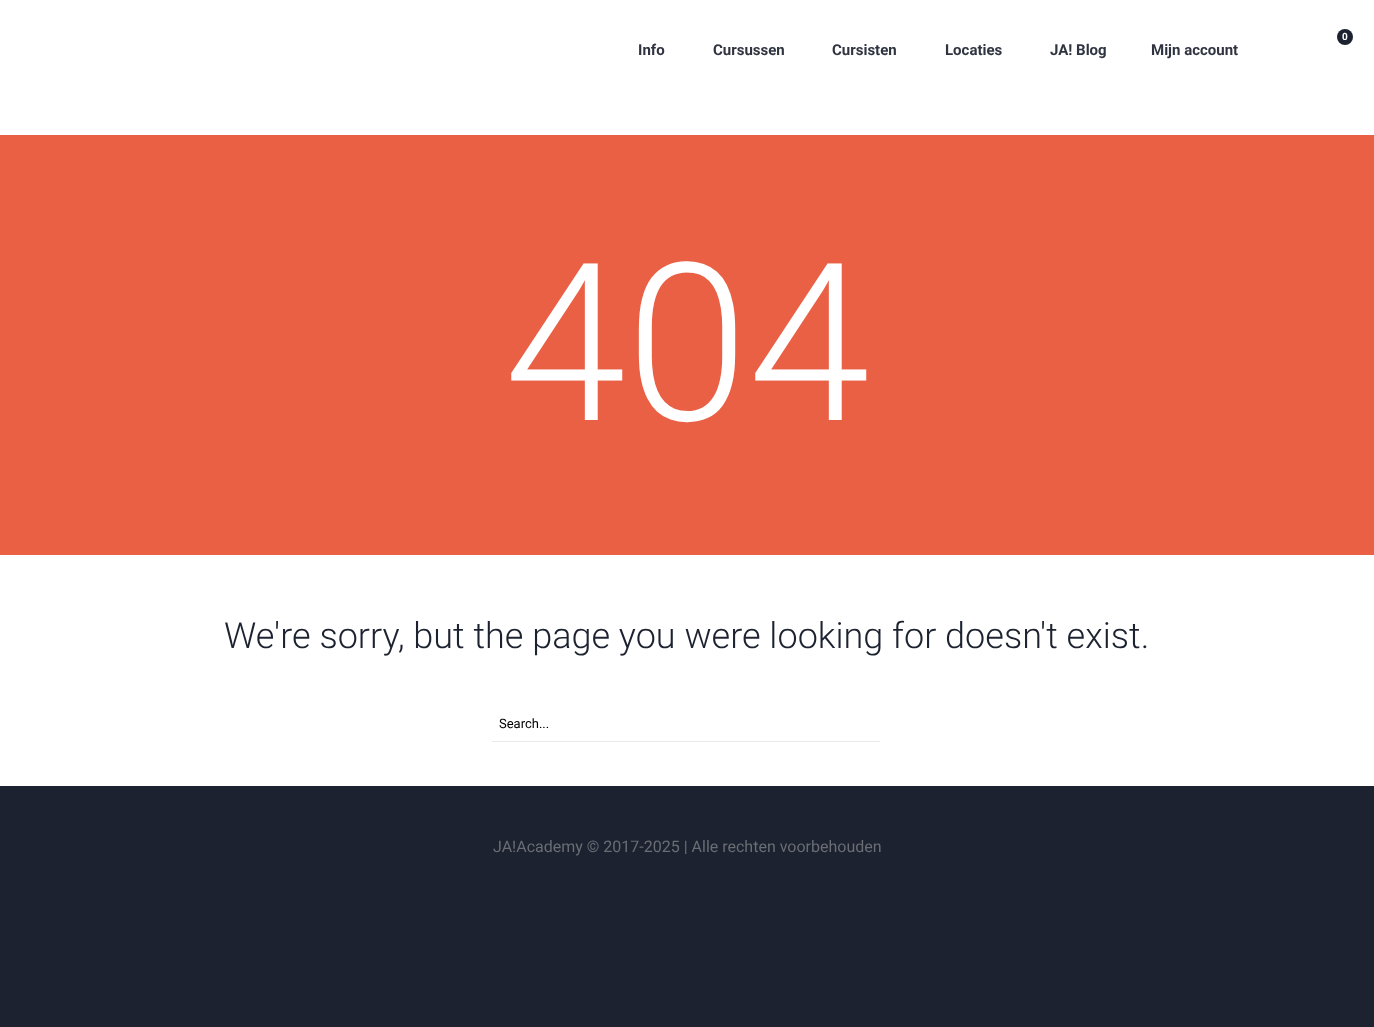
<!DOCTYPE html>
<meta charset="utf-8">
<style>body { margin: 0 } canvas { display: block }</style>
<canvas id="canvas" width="1374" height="1027"></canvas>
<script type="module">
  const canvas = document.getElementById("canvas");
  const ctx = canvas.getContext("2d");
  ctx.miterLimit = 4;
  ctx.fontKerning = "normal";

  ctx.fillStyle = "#ffffff";
  ctx.fillRect(0, 0, 1374, 1027);
  ctx.fillStyle = "#1c222f";
  ctx.beginPath();
  ctx.arc(1345, 37, 8, 0, Math.PI * 2);
  ctx.fill();
  ctx.font = "bold 10px Roboto";
  ctx.fillStyle = "#ffffff";
  ctx.fillText("0", 1342, 40);
  ctx.font = "bold 15px Roboto";
  ctx.fillStyle = "#2f3440";
  ctx.fillText("Info", 638, 55);
  ctx.fillText("Cursussen", 713, 55);
  ctx.fillText("Cursisten", 832, 55);
  ctx.fillText("Locaties", 945, 55);
  ctx.fillText("JA! Blog", 1050, 55);
  ctx.fillText("Mijn account", 1151, 55);
  ctx.fillStyle = "#ea6045";
  ctx.fillRect(0, 135, 1374, 420);
  ctx.font = "300 220px Roboto";
  ctx.fillStyle = "#ffffff";
  ctx.fillText("404", 504, 420);
  ctx.font = "300 36px Roboto";
  ctx.fillStyle = "#1c222f";
  ctx.fillText("We're sorry, but the page you were looking for doesn't exist.", 224, 648);
  ctx.fillStyle = "#e9e9e9";
  ctx.fillRect(492, 741, 388, 1);
  ctx.font = "13px Roboto";
  ctx.fillStyle = "#000000";
  ctx.fillText("Search...", 499, 728);
  ctx.fillStyle = "#1c222f";
  ctx.fillRect(0, 786, 1374, 241);
  ctx.font = "16px Roboto";
  ctx.fillStyle = "#6a6d74";
  ctx.fillText("JA!Academy © 2017-2025 | Alle rechten voorbehouden", 493, 852);
</script>
